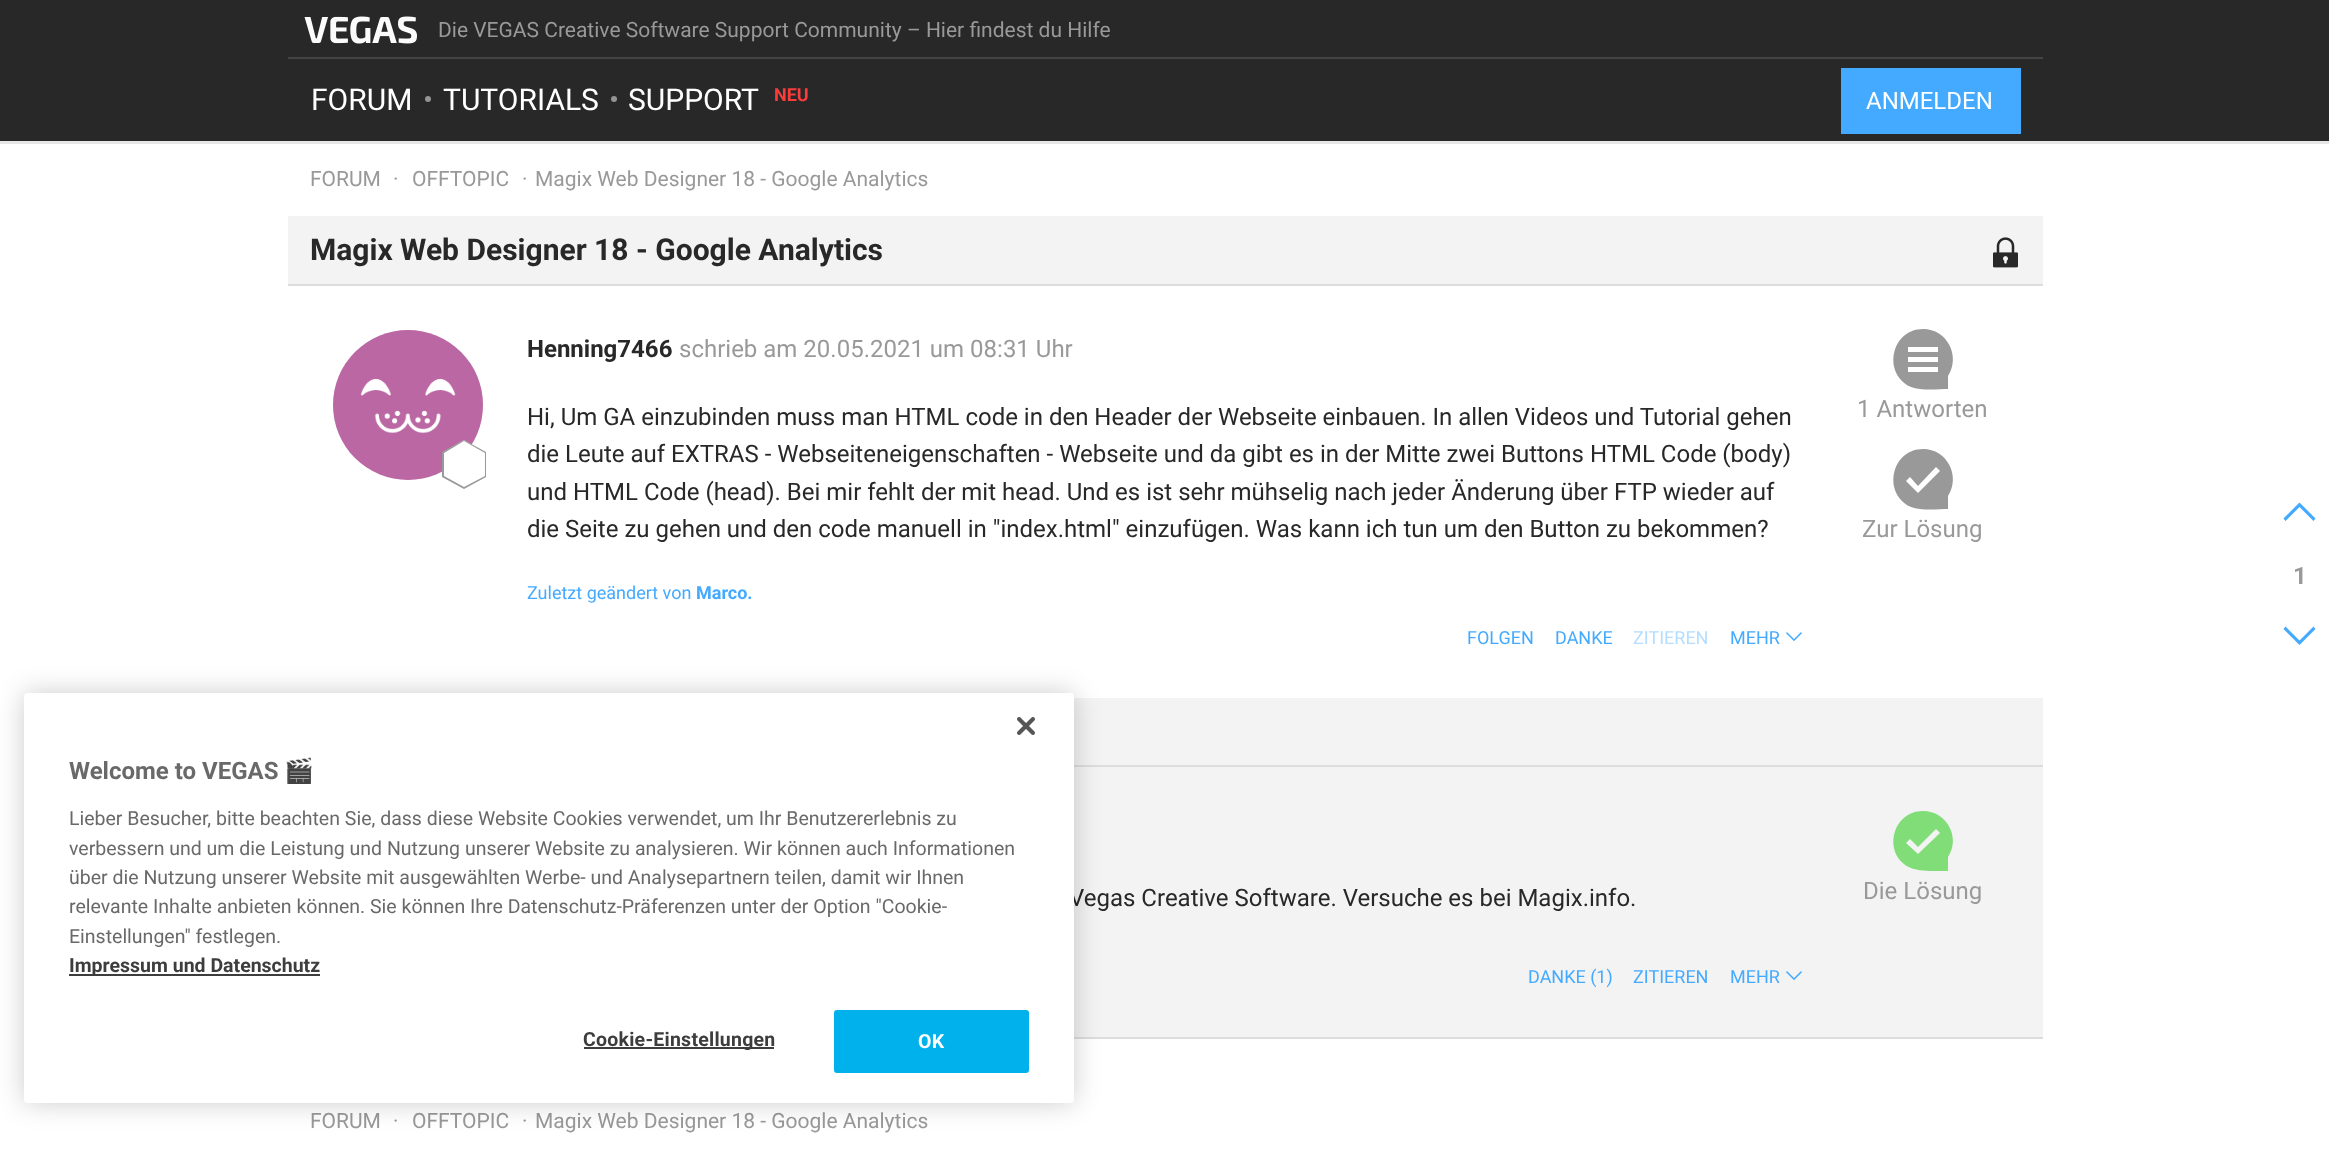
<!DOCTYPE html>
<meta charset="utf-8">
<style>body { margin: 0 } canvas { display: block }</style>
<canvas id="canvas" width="2329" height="1150"></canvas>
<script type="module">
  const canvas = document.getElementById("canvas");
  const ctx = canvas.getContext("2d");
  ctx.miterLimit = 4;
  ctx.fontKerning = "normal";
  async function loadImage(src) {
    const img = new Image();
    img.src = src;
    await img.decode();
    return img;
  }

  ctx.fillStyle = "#ffffff";
  ctx.fillRect(0, 0, 2329, 1150);
  ctx.fillStyle = "#e6e6e6";
  ctx.beginPath();
  ctx.moveTo(0, 141);
  ctx.lineTo(0, 144);
  ctx.lineTo(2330, 144);
  ctx.lineTo(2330, 3);
  ctx.lineTo(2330, 141);
  ctx.closePath();
  ctx.fill();
  ctx.fillStyle = "#282828";
  ctx.fillRect(0, 0, 2329, 141);
  ctx.drawImage(await loadImage("img1.png"), 304, 16, 113, 28);
  ctx.font = "21px Roboto";
  ctx.fillStyle = "#999999";
  ctx.fillText("Die VEGAS Creative Software Support Community – Hier findest du Hilfe", 438, 37);
  ctx.fillStyle = "#444444";
  ctx.fillRect(288, 57, 1755, 2);
  ctx.font = "30px Roboto";
  ctx.fillStyle = "#ffffff";
  ctx.fillText("FORUM", 311, 110);
  ctx.fillStyle = "#949494";
  ctx.beginPath();
  ctx.arc(428, 99, 3, 0, Math.PI * 2);
  ctx.fill();
  ctx.fillStyle = "#ffffff";
  ctx.fillText("TUTORIALS", 443, 110);
  ctx.fillStyle = "#949494";
  ctx.beginPath();
  ctx.arc(614, 99, 3, 0, Math.PI * 2);
  ctx.fill();
  ctx.fillStyle = "#ffffff";
  ctx.fillText("SUPPORT", 628, 110);
  ctx.font = "bold 18px Roboto";
  ctx.fillStyle = "#fa3c3c";
  ctx.fillText("NEU", 774, 101);
  ctx.fillStyle = "#44aaff";
  ctx.fillRect(1841, 68, 180, 66);
  ctx.font = "24px Roboto";
  ctx.fillStyle = "#ffffff";
  ctx.fillText("ANMELDEN", 1866, 109);
  ctx.font = "21px Roboto";
  ctx.fillStyle = "#999999";
  ctx.fillText("FORUM", 310, 186);
  ctx.fillText("·", 393, 186);
  ctx.fillText("OFFTOPIC", 412, 186);
  ctx.fillText("·", 522, 186);
  ctx.fillText("Magix Web Designer 18 - Google Analytics", 535, 186);
  ctx.fillStyle = "#f3f3f3";
  ctx.fillRect(288, 216, 1755, 68);
  ctx.fillStyle = "#dddddd";
  ctx.fillRect(288, 284, 1755, 2);
  ctx.font = "bold 30px Roboto";
  ctx.fillStyle = "#282828";
  ctx.fillText("Magix Web Designer 18 - Google Analytics", 310, 260);
  ctx.drawImage(await loadImage("img2.png"), 1993, 237, 25, 31);
  ctx.drawImage(await loadImage("img3.png"), 333, 330, 150, 150);
  ctx.fillStyle = "#ffffff";
  ctx.beginPath();
  ctx.moveTo(485, 476);
  ctx.lineTo(485, 452);
  ctx.lineTo(464, 440);
  ctx.lineTo(443, 452);
  ctx.lineTo(443, 476);
  ctx.lineTo(464, 488);
  ctx.closePath();
  ctx.fill();
  ctx.fillStyle = "#999999";
  ctx.beginPath();
  ctx.moveTo(464, 489);
  ctx.lineTo(442, 477);
  ctx.lineTo(442, 452);
  ctx.lineTo(464, 440);
  ctx.lineTo(486, 452);
  ctx.lineTo(486, 477);
  ctx.closePath();
  ctx.moveTo(444, 476);
  ctx.lineTo(464, 487);
  ctx.lineTo(485, 476);
  ctx.lineTo(485, 453);
  ctx.lineTo(464, 441);
  ctx.lineTo(444, 453);
  ctx.closePath();
  ctx.fill();
  ctx.font = "bold 24px Roboto";
  ctx.fillStyle = "#282828";
  ctx.fillText("Henning7466", 527, 357);
  ctx.font = "24px Roboto";
  ctx.fillStyle = "#999999";
  ctx.fillText("schrieb am 20.05.2021 um 08:31 Uhr", 679, 357);
  ctx.fillStyle = "#282828";
  ctx.fillText("Hi, Um GA einzubinden muss man HTML code in den Header der Webseite einbauen. In allen Videos und Tutorial gehen", 527, 425);
  ctx.fillText("die Leute auf EXTRAS - Webseiteneigenschaften - Webseite und da gibt es in der Mitte zwei Buttons HTML Code (body)", 527, 462);
  ctx.fillText("und HTML Code (head). Bei mir fehlt der mit head. Und es ist sehr mühselig nach jeder Änderung über FTP wieder auf", 527, 500);
  ctx.fillText("die Seite zu gehen und den code manuell in \"index.html\" einzufügen. Was kann ich tun um den Button zu bekommen?", 527, 537);
  ctx.font = "18px Roboto";
  ctx.fillStyle = "#44aaff";
  ctx.fillText("Zuletzt geändert von", 527, 599);
  ctx.font = "bold 18px Roboto";
  ctx.fillText("Marco.", 696, 599);
  ctx.font = "18px Roboto";
  ctx.fillText("FOLGEN", 1467, 644);
  ctx.fillText("DANKE", 1555, 644);
  ctx.fillStyle = "#b4ddff";
  ctx.fillText("ZITIEREN", 1633, 644);
  ctx.fillStyle = "#44aaff";
  ctx.fillText("MEHR", 1730, 644);
  ctx.drawImage(await loadImage("img4.png"), 1786, 632, 16, 9);
  ctx.fillStyle = "#999999";
  ctx.beginPath();
  ctx.moveTo(1923, 329);
  ctx.bezierCurveTo(1891, 329, 1882, 374, 1911, 387);
  ctx.bezierCurveTo(1921, 391, 1939, 389, 1948, 389);
  ctx.lineTo(1948, 376);
  ctx.bezierCurveTo(1961, 356, 1947, 329, 1923, 329);
  ctx.closePath();
  ctx.moveTo(1938, 372);
  ctx.lineTo(1908, 372);
  ctx.lineTo(1908, 367);
  ctx.lineTo(1938, 367);
  ctx.closePath();
  ctx.moveTo(1938, 362);
  ctx.lineTo(1908, 362);
  ctx.lineTo(1908, 357);
  ctx.lineTo(1938, 357);
  ctx.closePath();
  ctx.moveTo(1938, 352);
  ctx.lineTo(1908, 352);
  ctx.lineTo(1908, 347);
  ctx.lineTo(1938, 347);
  ctx.closePath();
  ctx.fill();
  ctx.font = "24px Roboto";
  ctx.fillText("1 Antworten", 1857, 417);
  ctx.beginPath();
  ctx.moveTo(1923, 449);
  ctx.bezierCurveTo(1891, 449, 1882, 494, 1911, 507);
  ctx.bezierCurveTo(1921, 511, 1939, 509, 1948, 509);
  ctx.lineTo(1948, 496);
  ctx.bezierCurveTo(1961, 476, 1947, 449, 1923, 449);
  ctx.closePath();
  ctx.moveTo(1918, 493);
  ctx.lineTo(1906, 481);
  ctx.lineTo(1910, 477);
  ctx.lineTo(1918, 486);
  ctx.lineTo(1936, 467);
  ctx.lineTo(1940, 471);
  ctx.closePath();
  ctx.fill();
  ctx.fillText("Zur Lösung", 1862, 537);
  ctx.fillStyle = "#44aaff";
  ctx.beginPath();
  ctx.moveTo(2283.5, 518.5);
  ctx.lineTo(2285.5, 521);
  ctx.lineTo(2299.5, 507);
  ctx.lineTo(2313.5, 521);
  ctx.lineTo(2315.5, 518.5);
  ctx.lineTo(2299.5, 502.5);
  ctx.closePath();
  ctx.fill();
  ctx.font = "bold 24px Roboto";
  ctx.fillStyle = "#999999";
  ctx.fillText("1", 2293, 584);
  ctx.fillStyle = "#44aaff";
  ctx.beginPath();
  ctx.moveTo(2315.5, 629);
  ctx.lineTo(2313.5, 626.5);
  ctx.lineTo(2299.5, 640.5);
  ctx.lineTo(2285.5, 626.5);
  ctx.lineTo(2283.5, 629);
  ctx.lineTo(2299.5, 645);
  ctx.closePath();
  ctx.fill();
  ctx.fillStyle = "#f3f3f3";
  ctx.fillRect(1074, 698, 969, 67);
  ctx.fillStyle = "#dddddd";
  ctx.fillRect(1074, 765, 969, 2);
  ctx.fillStyle = "#f3f3f3";
  ctx.fillRect(1074, 767, 969, 270);
  ctx.font = "24px Roboto";
  ctx.fillStyle = "#282828";
  ctx.fillText("Vegas Creative Software. Versuche es bei Magix.info.", 1069, 906);
  ctx.font = "18px Roboto";
  ctx.fillStyle = "#44aaff";
  ctx.fillText("DANKE (1)", 1528, 983);
  ctx.fillText("ZITIEREN", 1633, 983);
  ctx.fillText("MEHR", 1730, 983);
  ctx.drawImage(await loadImage("img5.png"), 1786, 971, 16, 9);
  ctx.fillStyle = "#80dd77";
  ctx.beginPath();
  ctx.moveTo(1923, 811);
  ctx.bezierCurveTo(1891, 811, 1882, 856, 1911, 868);
  ctx.bezierCurveTo(1921, 872, 1939, 871, 1948, 871);
  ctx.lineTo(1948, 857);
  ctx.bezierCurveTo(1961, 838, 1947, 811, 1923, 811);
  ctx.closePath();
  ctx.moveTo(1918, 854);
  ctx.lineTo(1906, 843);
  ctx.lineTo(1910, 839);
  ctx.lineTo(1918, 847);
  ctx.lineTo(1936, 829);
  ctx.lineTo(1940, 833);
  ctx.closePath();
  ctx.fill();
  ctx.font = "24px Roboto";
  ctx.fillStyle = "#999999";
  ctx.fillText("Die Lösung", 1863, 899);
  ctx.fillStyle = "#dddddd";
  ctx.fillRect(1074, 1037, 969, 2);
  ctx.font = "21px Roboto";
  ctx.fillStyle = "#999999";
  ctx.fillText("FORUM", 310, 1128);
  ctx.fillText("·", 393, 1128);
  ctx.fillText("OFFTOPIC", 412, 1128);
  ctx.fillText("·", 522, 1128);
  ctx.fillText("Magix Web Designer 18 - Google Analytics", 535, 1128);
  ctx.fillStyle = "rgba(0, 0, 0, 0.2)";
  ctx.filter = "blur(13.5px)";
  ctx.beginPath();
  ctx.roundRect(24, 693, 1050, 410, 4);
  ctx.fill();
  ctx.filter = "none";
  ctx.fillStyle = "#ffffff";
  ctx.beginPath();
  ctx.roundRect(24, 693, 1050, 410, 4);
  ctx.fill();
  ctx.drawImage(await loadImage("img6.png"), 1017, 717, 18, 18);
  ctx.font = "bold 24px Roboto";
  ctx.fillStyle = "#696969";
  ctx.fillText("Welcome to VEGAS", 69, 779);
  ctx.font = "bold 24px Noto Color Emoji";
  ctx.fillText("🎬", 284, 779);
  ctx.font = "19.5px Roboto";
  ctx.fillText("Lieber Besucher, bitte beachten Sie, dass diese Website Cookies verwendet, um Ihr Benutzererlebnis zu", 69, 825);
  ctx.fillText("verbessern und um die Leistung und Nutzung unserer Website zu analysieren. Wir können auch Informationen", 69, 855);
  ctx.fillText("über die Nutzung unserer Website mit ausgewählten Werbe- und Analysepartnern teilen, damit wir Ihnen", 69, 884);
  ctx.fillText("relevante Inhalte anbieten können. Sie können Ihre Datenschutz-Präferenzen unter der Option \"Cookie-", 69, 913);
  ctx.fillText("Einstellungen\" festlegen.", 69, 943);
  ctx.fillStyle = "#3d3d3d";
  ctx.fillRect(69, 974, 251, 2);
  ctx.font = "bold 19.5px Roboto";
  ctx.fillText("Impressum und Datenschutz", 69, 972);
  ctx.fillRect(584, 1047, 190, 2);
  ctx.letterSpacing = "0.25px";
  ctx.fillText("Cookie-Einstellungen", 583, 1046);
  ctx.fillStyle = "#00b1ec";
  ctx.beginPath();
  ctx.roundRect(835, 1011, 193, 61, 2);
  ctx.fill();
  ctx.strokeStyle = "#00b1ec";
  ctx.lineWidth = 2;
  ctx.stroke();
  ctx.fillStyle = "#ffffff";
  ctx.fillText("OK", 918, 1048);
</script>
